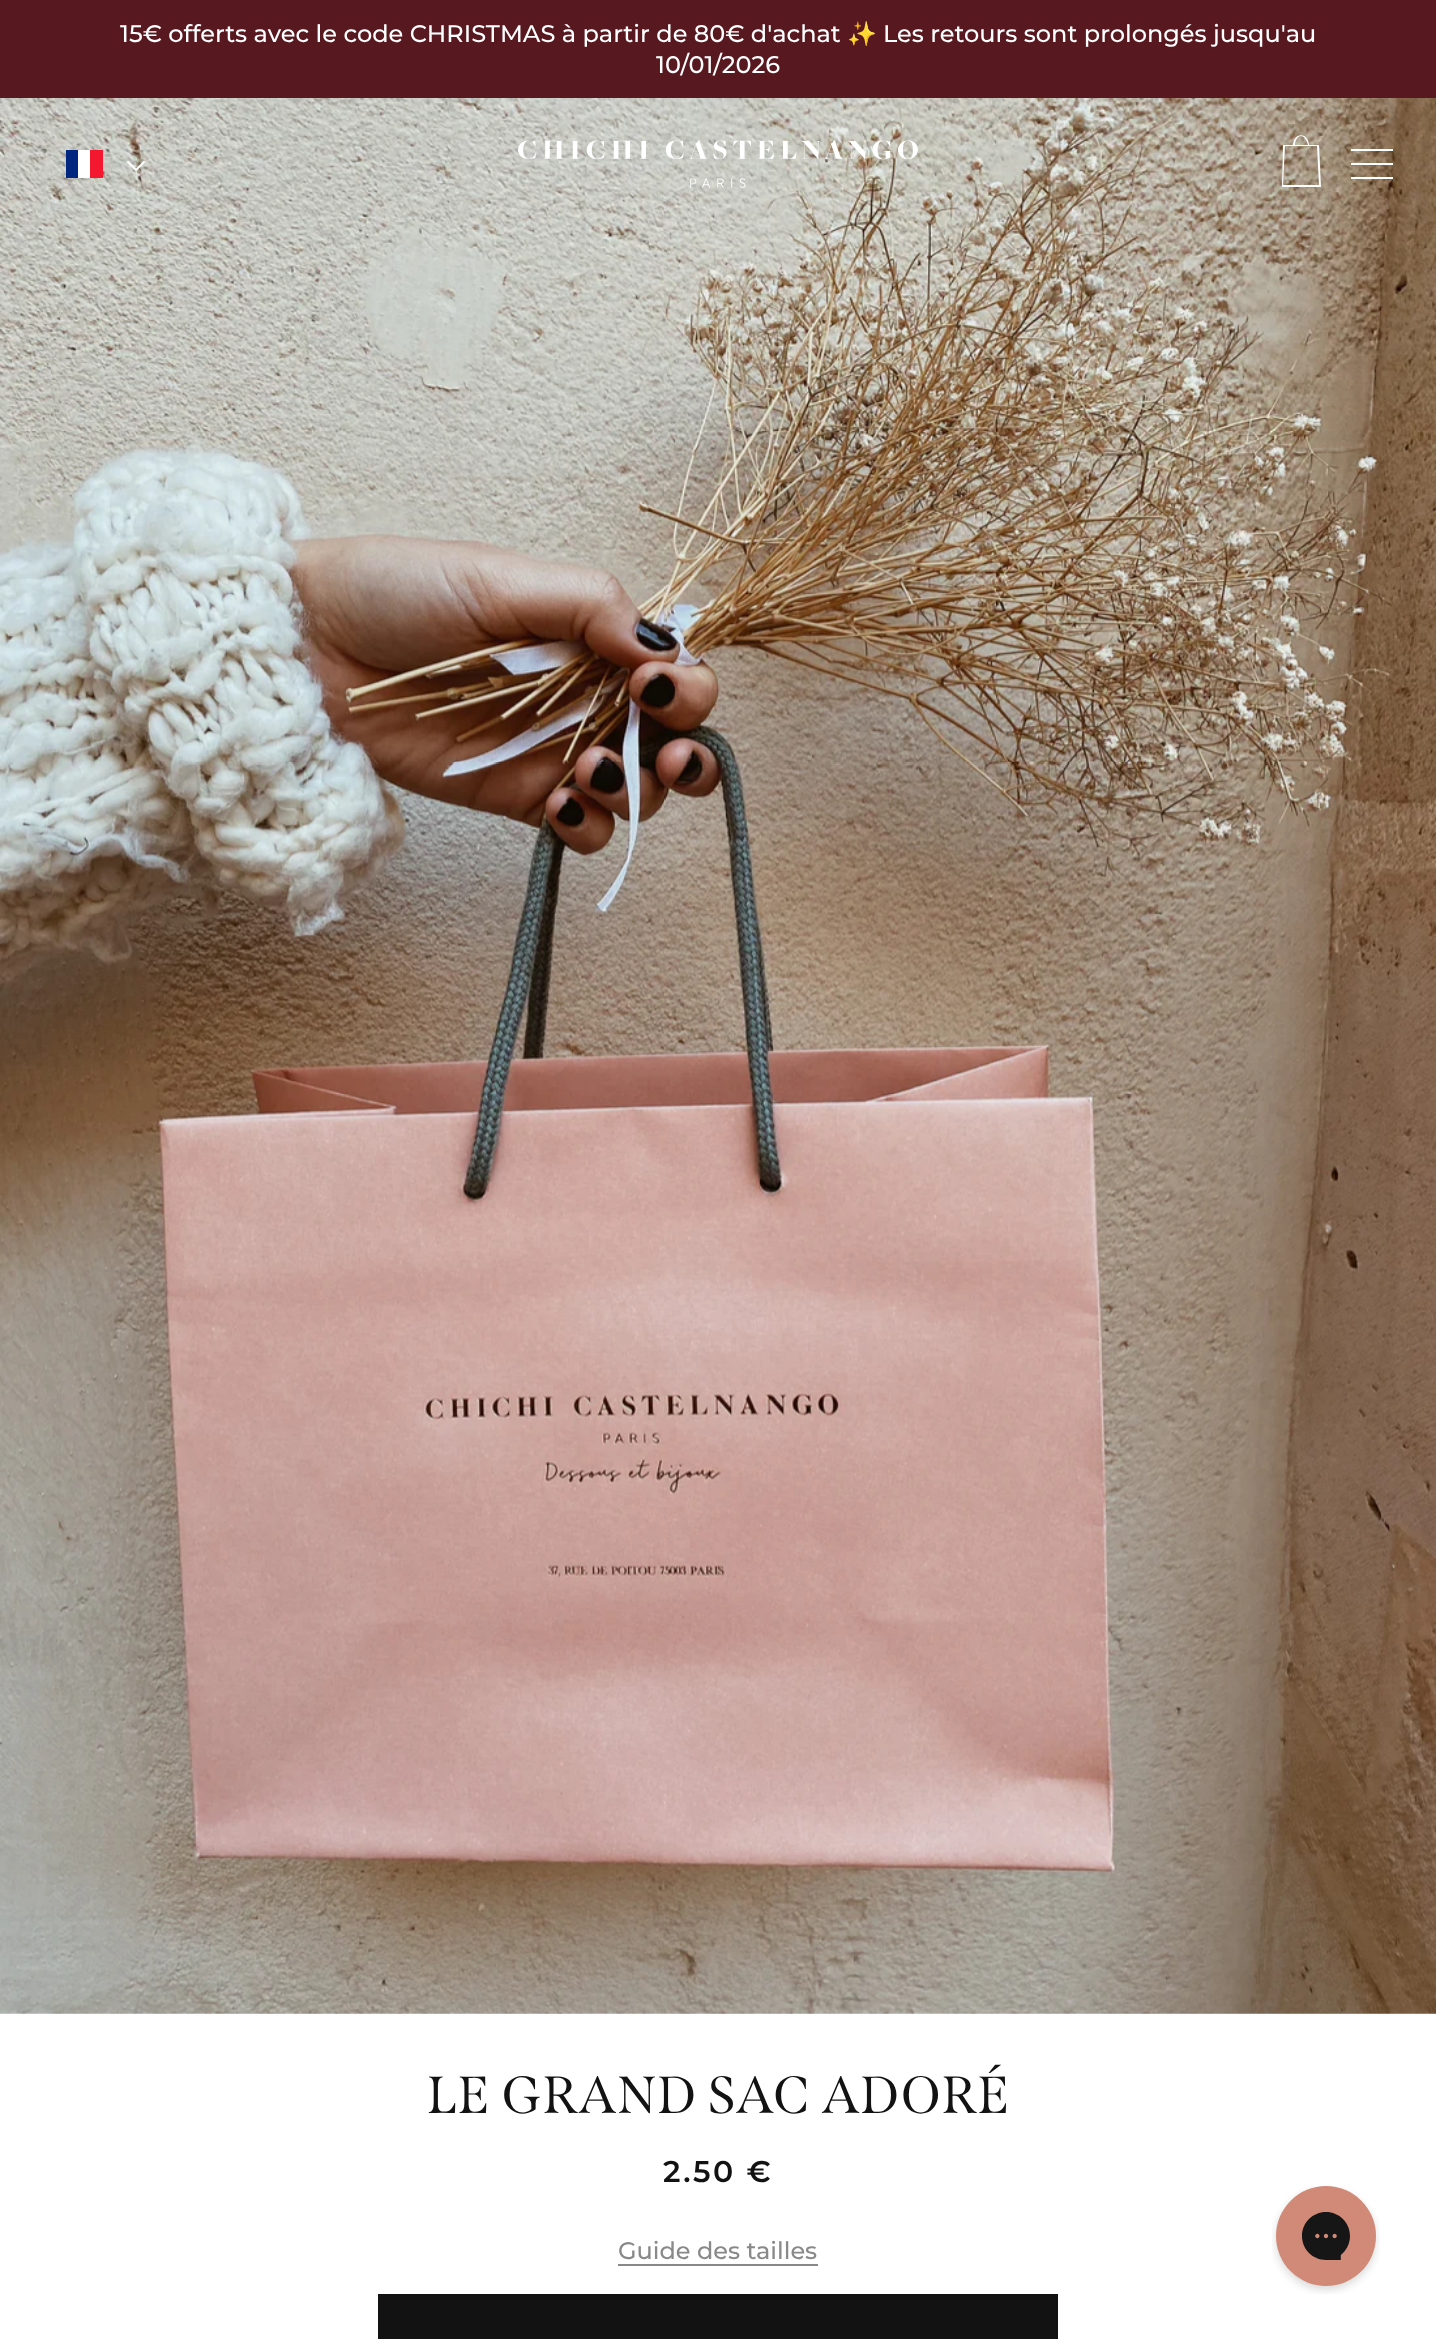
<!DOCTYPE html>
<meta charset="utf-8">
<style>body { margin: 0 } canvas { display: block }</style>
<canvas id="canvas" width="1436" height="2339"></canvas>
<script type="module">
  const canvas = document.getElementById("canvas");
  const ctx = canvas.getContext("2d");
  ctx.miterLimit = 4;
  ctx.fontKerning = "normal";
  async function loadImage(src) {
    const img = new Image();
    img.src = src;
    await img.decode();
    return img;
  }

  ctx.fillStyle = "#58181f";
  ctx.fillRect(0, 0, 1436, 2339);
  ctx.font = "500 24px Montserrat";
  ctx.fillStyle = "#ffffff";
  ctx.fillText("15€ offerts avec le code CHRISTMAS à partir de 80€ d'achat", 120, 42);
  ctx.font = "24px Noto Color Emoji";
  ctx.fillText("✨", 847, 42);
  ctx.font = "500 24px Montserrat";
  ctx.fillText("Les retours sont prolongés jusqu'au", 883, 42);
  ctx.fillText("10/01/2026", 656, 73);
  ctx.fillRect(0, 2013, 1436, 326);
  ctx.drawImage(await loadImage("img3.png"), 0, 98, 1436, 1916);
  ctx.fillRect(78, 150, 12, 28);
  ctx.fillStyle = "#00267f";
  ctx.fillRect(66, 150, 12, 28);
  ctx.fillStyle = "#f31830";
  ctx.fillRect(90, 150, 13, 28);
  ctx.drawImage(await loadImage("img1.png"), 127, 161, 18, 10);
  ctx.drawImage(await loadImage("img2.png"), 518, 140, 400, 48);
  ctx.fillStyle = "#ffffff";
  ctx.beginPath();
  ctx.moveTo(1319, 145);
  ctx.lineTo(1309, 145);
  ctx.bezierCurveTo(1308, 132, 1294, 132, 1293, 145);
  ctx.lineTo(1283, 145);
  ctx.lineTo(1282, 187);
  ctx.lineTo(1321, 187);
  ctx.closePath();
  ctx.moveTo(1301, 136);
  ctx.bezierCurveTo(1304, 136, 1307, 140, 1308, 145);
  ctx.lineTo(1295, 145);
  ctx.bezierCurveTo(1295, 140, 1298, 136, 1301, 136);
  ctx.closePath();
  ctx.moveTo(1283, 185);
  ctx.lineTo(1285, 146);
  ctx.lineTo(1317, 146);
  ctx.lineTo(1319, 185);
  ctx.closePath();
  ctx.fill();
  ctx.fillRect(1351, 149, 42, 2);
  ctx.fillRect(1351, 163, 42, 2);
  ctx.fillRect(1351, 177, 42, 2);
  ctx.letterSpacing = "1.25px";
  ctx.font = "52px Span";
  ctx.fillStyle = "#121212";
  ctx.fillText("LE GRAND SAC ADORÉ", 427, 2113);
  ctx.letterSpacing = "2.5px";
  ctx.font = "600 30px Montserrat";
  ctx.fillText("2.50 €", 663, 2182);
  ctx.letterSpacing = "0px";
  ctx.font = "500 24px Montserrat";
  ctx.fillStyle = "#898989";
  ctx.fillText("Guide des tailles", 618, 2259);
  ctx.fillRect(618, 2264, 200, 2);
  ctx.fillStyle = "#121212";
  ctx.fillRect(378, 2294, 680, 45);
  ctx.drawImage(await loadImage("img4.png"), 1272, 2186, 108, 108);
</script>
